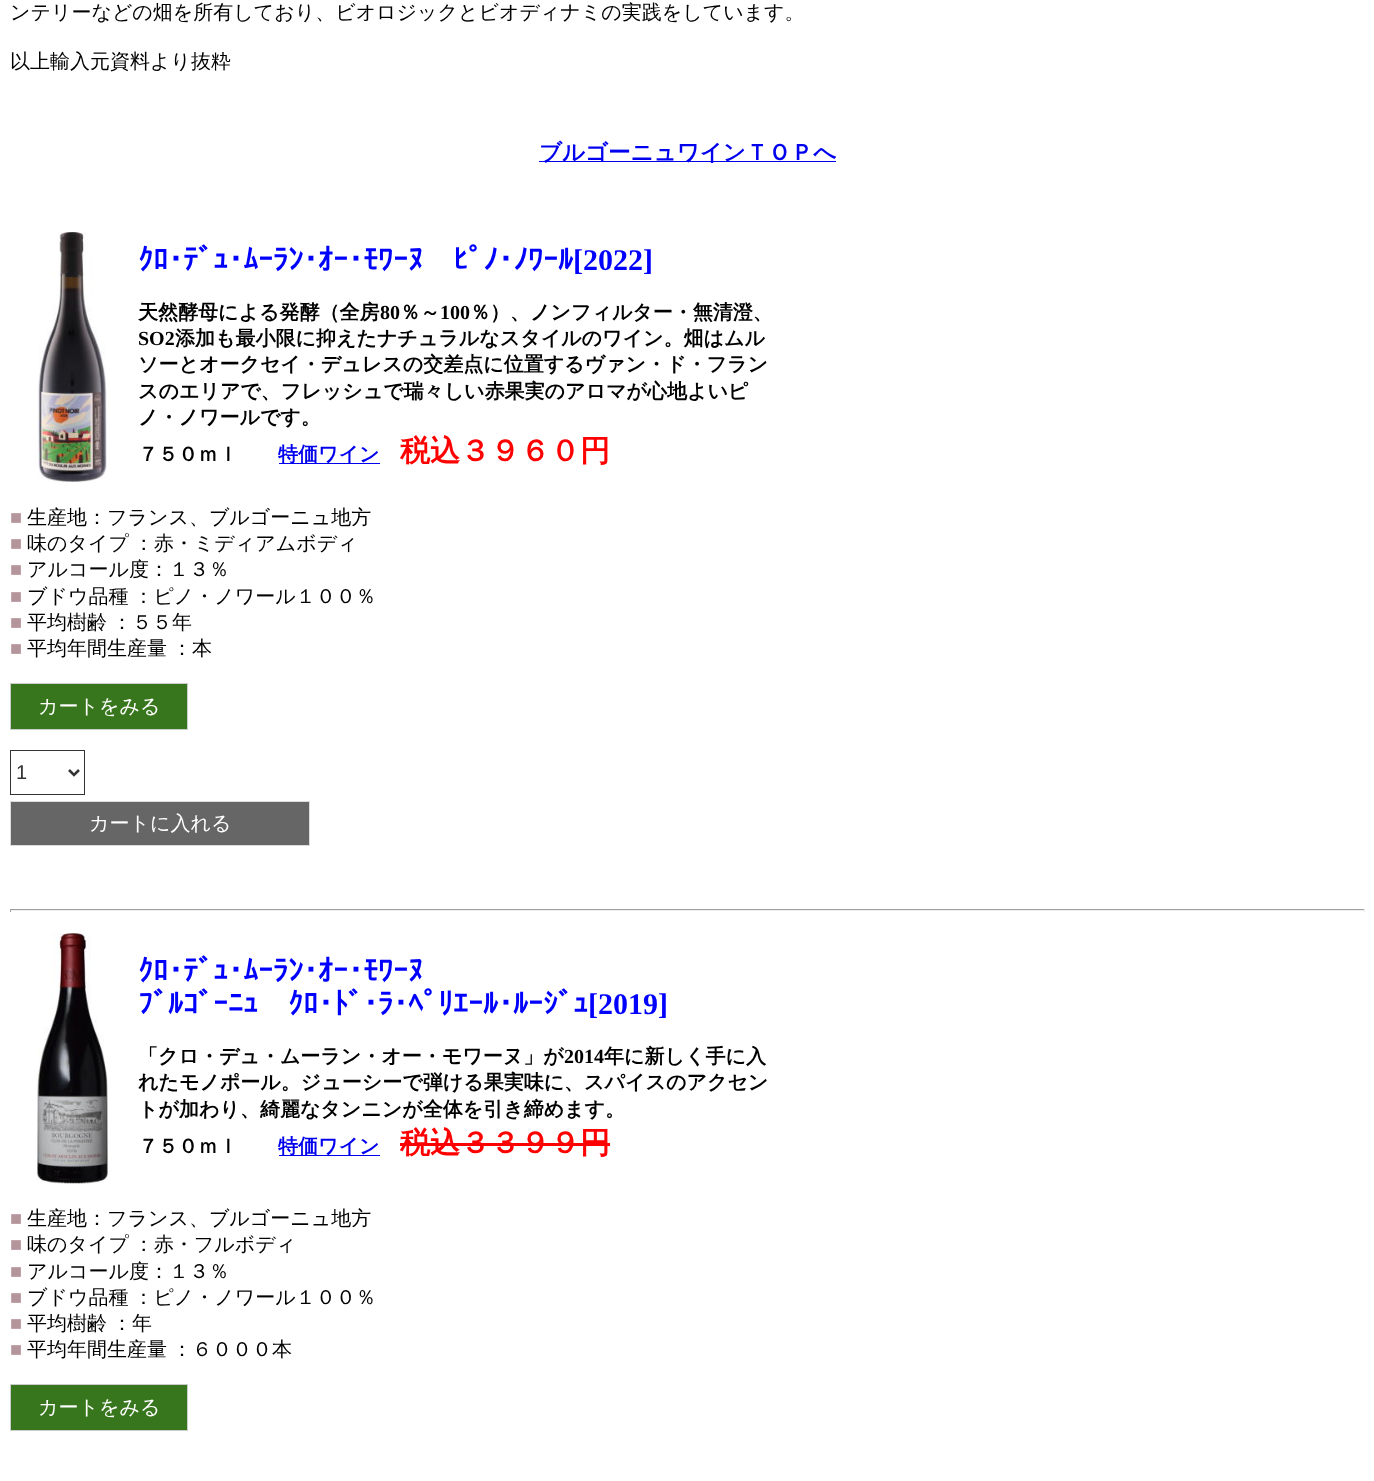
<!DOCTYPE html>
<meta charset="utf-8">
<style>body { margin: 0 } canvas { display: block }</style>
<canvas id="canvas" width="1374" height="1481"></canvas>
<script type="module">
  const canvas = document.getElementById("canvas");
  const ctx = canvas.getContext("2d");
  ctx.miterLimit = 4;
  ctx.fontKerning = "normal";
  async function loadImage(src) {
    const img = new Image();
    img.src = src;
    await img.decode();
    return img;
  }

  ctx.fillStyle = "#ffffff";
  ctx.fillRect(0, 0, 1374, 1481);
  ctx.font = "500 20px WenQuanYi Zen Hei";
  ctx.fillStyle = "#000000";
  ctx.fillText("ンテリーなどの畑を所有しており、ビオロジックとビオディナミの実践をしています。", 10, 19);
  ctx.fillText("以上輸入元資料より抜粋", 10, 68);
  ctx.fillStyle = "#0000ee";
  ctx.fillRect(539, 161, 297, 1);
  ctx.font = "bold 22.5px WenQuanYi Zen Hei";
  ctx.fillText("ブルゴーニュワインＴＯＰへ", 539, 160);
  ctx.drawImage(await loadImage("img1.png"), 38, 232, 69, 250);
  ctx.font = "bold 30px IPAGothic";
  ctx.fillStyle = "#0000ff";
  ctx.fillText("ｸﾛ･ﾃﾞｭ･ﾑｰﾗﾝ･ｵｰ･ﾓﾜｰﾇ　ﾋﾟﾉ･ﾉﾜｰﾙ", 138, 270);
  ctx.font = "bold 30px Liberation Serif";
  ctx.fillText("[2022]", 573, 270);
  ctx.font = "bold 20px WenQuanYi Zen Hei";
  ctx.fillStyle = "#000000";
  ctx.fillText("天然酵母による発酵（全房", 138, 319);
  ctx.font = "bold 20px Liberation Serif";
  ctx.fillText("80", 380, 319);
  ctx.font = "bold 20px WenQuanYi Zen Hei";
  ctx.fillText("％～", 400, 319);
  ctx.font = "bold 20px Liberation Serif";
  ctx.fillText("100", 440, 319);
  ctx.font = "bold 20px WenQuanYi Zen Hei";
  ctx.fillText("％）、ノンフィルター・無清澄、", 470, 319);
  ctx.font = "bold 20px Liberation Serif";
  ctx.fillText("SO2", 138, 345);
  ctx.font = "bold 20px WenQuanYi Zen Hei";
  ctx.fillText("添加も最小限に抑えたナチュラルなスタイルのワイン。畑はムル", 175, 345);
  ctx.fillText("ソーとオークセイ・デュレスの交差点に位置するヴァン・ド・フラン", 138, 371);
  ctx.fillText("スのエリアで、フレッシュで瑞々しい赤果実のアロマが心地よいピ", 138, 398);
  ctx.fillText("ノ・ノワールです。", 138, 424);
  ctx.fillText("７５０ｍｌ", 138, 461);
  ctx.fillStyle = "#0000ee";
  ctx.fillRect(279, 463, 101, 1);
  ctx.fillText("特価ワイン", 278, 461);
  ctx.font = "bold 30px WenQuanYi Zen Hei";
  ctx.fillStyle = "#ff0000";
  ctx.fillText("税込３９６０円", 400, 461);
  ctx.font = "20px Liberation Serif";
  ctx.fillStyle = "#b5959c";
  ctx.fillText("■", 10, 524);
  ctx.font = "500 20px WenQuanYi Zen Hei";
  ctx.fillStyle = "#000000";
  ctx.fillText("生産地：フランス、ブルゴーニュ地方", 27, 524);
  ctx.font = "20px Liberation Serif";
  ctx.fillStyle = "#b5959c";
  ctx.fillText("■", 10, 550);
  ctx.wordSpacing = "-1px";
  ctx.font = "500 20px WenQuanYi Zen Hei";
  ctx.fillStyle = "#000000";
  ctx.fillText("味のタイプ ：赤・ミディアムボディ", 27, 550);
  ctx.wordSpacing = "0px";
  ctx.font = "20px Liberation Serif";
  ctx.fillStyle = "#b5959c";
  ctx.fillText("■", 10, 576);
  ctx.font = "500 20px WenQuanYi Zen Hei";
  ctx.fillStyle = "#000000";
  ctx.fillText("アルコール度：１３％", 27, 576);
  ctx.font = "20px Liberation Serif";
  ctx.fillStyle = "#b5959c";
  ctx.fillText("■", 10, 603);
  ctx.wordSpacing = "-1px";
  ctx.font = "500 20px WenQuanYi Zen Hei";
  ctx.fillStyle = "#000000";
  ctx.fillText("ブドウ品種 ：ピノ・ノワール１００％", 27, 603);
  ctx.wordSpacing = "0px";
  ctx.font = "20px Liberation Serif";
  ctx.fillStyle = "#b5959c";
  ctx.fillText("■", 10, 629);
  ctx.wordSpacing = "-1px";
  ctx.font = "500 20px WenQuanYi Zen Hei";
  ctx.fillStyle = "#000000";
  ctx.fillText("平均樹齢 ：５５年", 27, 629);
  ctx.wordSpacing = "0px";
  ctx.font = "20px Liberation Serif";
  ctx.fillStyle = "#b5959c";
  ctx.fillText("■", 10, 655);
  ctx.wordSpacing = "-1px";
  ctx.font = "500 20px WenQuanYi Zen Hei";
  ctx.fillStyle = "#000000";
  ctx.fillText("平均年間生産量 ：本", 27, 655);
  ctx.fillStyle = "#38761d";
  ctx.beginPath();
  ctx.rect(10.5, 683.5, 177, 46);
  ctx.fill();
  ctx.strokeStyle = "#cccccc";
  ctx.stroke();
  ctx.wordSpacing = "0px";
  ctx.fillStyle = "#ffffff";
  ctx.fillText("カートをみる", 38, 713);
  ctx.strokeStyle = "#333333";
  ctx.strokeRect(10.5, 750.5, 74, 44);
  ctx.beginPath();
  ctx.moveTo(69, 770);
  ctx.lineTo(74, 775);
  ctx.lineTo(79, 770);
  ctx.lineWidth = 2.5;
  ctx.stroke();
  ctx.font = "20px Liberation Sans";
  ctx.fillStyle = "#333333";
  ctx.fillText("1", 16, 779);
  ctx.fillStyle = "#666666";
  ctx.beginPath();
  ctx.rect(10.5, 801.5, 299, 44);
  ctx.fill();
  ctx.strokeStyle = "#dddddd";
  ctx.lineWidth = 1;
  ctx.stroke();
  ctx.font = "500 20px WenQuanYi Zen Hei";
  ctx.fillStyle = "#ffffff";
  ctx.fillText("カートに入れる", 89, 830);
  ctx.fillStyle = "#9f9f9f";
  ctx.fillRect(10, 909, 1355, 1);
  ctx.fillStyle = "#eeeeee";
  ctx.fillRect(1364, 909, 1, 3);
  ctx.fillRect(10, 910, 1355, 1);
  ctx.fillStyle = "#9f9f9f";
  ctx.fillRect(10, 909, 1, 3);
  ctx.drawImage(await loadImage("img2.png"), 37, 933, 71, 251);
  ctx.font = "bold 30px IPAGothic";
  ctx.fillStyle = "#0000ff";
  ctx.fillText("ｸﾛ･ﾃﾞｭ･ﾑｰﾗﾝ･ｵｰ･ﾓﾜｰﾇ", 138, 981);
  ctx.fillText("ﾌﾞﾙｺﾞｰﾆｭ　ｸﾛ･ﾄﾞ･ﾗ･ﾍﾟﾘｴｰﾙ･ﾙｰｼﾞｭ", 138, 1014);
  ctx.font = "bold 30px Liberation Serif";
  ctx.fillText("[2019]", 588, 1014);
  ctx.font = "bold 20px WenQuanYi Zen Hei";
  ctx.fillStyle = "#000000";
  ctx.fillText("「クロ・デュ・ムーラン・オー・モワーヌ」が", 138, 1063);
  ctx.font = "bold 20px Liberation Serif";
  ctx.fillText("2014", 564, 1063);
  ctx.font = "bold 20px WenQuanYi Zen Hei";
  ctx.fillText("年に新しく手に入", 604, 1063);
  ctx.fillText("れたモノポール。ジューシーで弾ける果実味に、スパイスのアクセン", 138, 1089);
  ctx.fillText("トが加わり、綺麗なタンニンが全体を引き締めます。", 138, 1116);
  ctx.fillText("７５０ｍｌ", 138, 1153);
  ctx.fillStyle = "#0000ee";
  ctx.fillRect(279, 1155, 101, 1);
  ctx.fillText("特価ワイン", 278, 1153);
  ctx.font = "bold 30px WenQuanYi Zen Hei";
  ctx.fillStyle = "#ff0000";
  ctx.fillText("税込３３９９円", 400, 1153);
  ctx.fillRect(400, 1143, 210, 3);
  ctx.font = "20px Liberation Serif";
  ctx.fillStyle = "#b5959c";
  ctx.fillText("■", 10, 1225);
  ctx.font = "500 20px WenQuanYi Zen Hei";
  ctx.fillStyle = "#000000";
  ctx.fillText("生産地：フランス、ブルゴーニュ地方", 27, 1225);
  ctx.font = "20px Liberation Serif";
  ctx.fillStyle = "#b5959c";
  ctx.fillText("■", 10, 1251);
  ctx.wordSpacing = "-1px";
  ctx.font = "500 20px WenQuanYi Zen Hei";
  ctx.fillStyle = "#000000";
  ctx.fillText("味のタイプ ：赤・フルボディ", 27, 1251);
  ctx.wordSpacing = "0px";
  ctx.font = "20px Liberation Serif";
  ctx.fillStyle = "#b5959c";
  ctx.fillText("■", 10, 1278);
  ctx.font = "500 20px WenQuanYi Zen Hei";
  ctx.fillStyle = "#000000";
  ctx.fillText("アルコール度：１３％", 27, 1278);
  ctx.font = "20px Liberation Serif";
  ctx.fillStyle = "#b5959c";
  ctx.fillText("■", 10, 1304);
  ctx.wordSpacing = "-1px";
  ctx.font = "500 20px WenQuanYi Zen Hei";
  ctx.fillStyle = "#000000";
  ctx.fillText("ブドウ品種 ：ピノ・ノワール１００％", 27, 1304);
  ctx.wordSpacing = "0px";
  ctx.font = "20px Liberation Serif";
  ctx.fillStyle = "#b5959c";
  ctx.fillText("■", 10, 1330);
  ctx.wordSpacing = "-1px";
  ctx.font = "500 20px WenQuanYi Zen Hei";
  ctx.fillStyle = "#000000";
  ctx.fillText("平均樹齢 ：年", 27, 1330);
  ctx.wordSpacing = "0px";
  ctx.font = "20px Liberation Serif";
  ctx.fillStyle = "#b5959c";
  ctx.fillText("■", 10, 1356);
  ctx.wordSpacing = "-1px";
  ctx.font = "500 20px WenQuanYi Zen Hei";
  ctx.fillStyle = "#000000";
  ctx.fillText("平均年間生産量 ：６０００本", 27, 1356);
  ctx.fillStyle = "#38761d";
  ctx.beginPath();
  ctx.rect(10.5, 1384.5, 177, 46);
  ctx.fill();
  ctx.strokeStyle = "#cccccc";
  ctx.stroke();
  ctx.wordSpacing = "0px";
  ctx.fillStyle = "#ffffff";
  ctx.fillText("カートをみる", 38, 1414);
</script>
